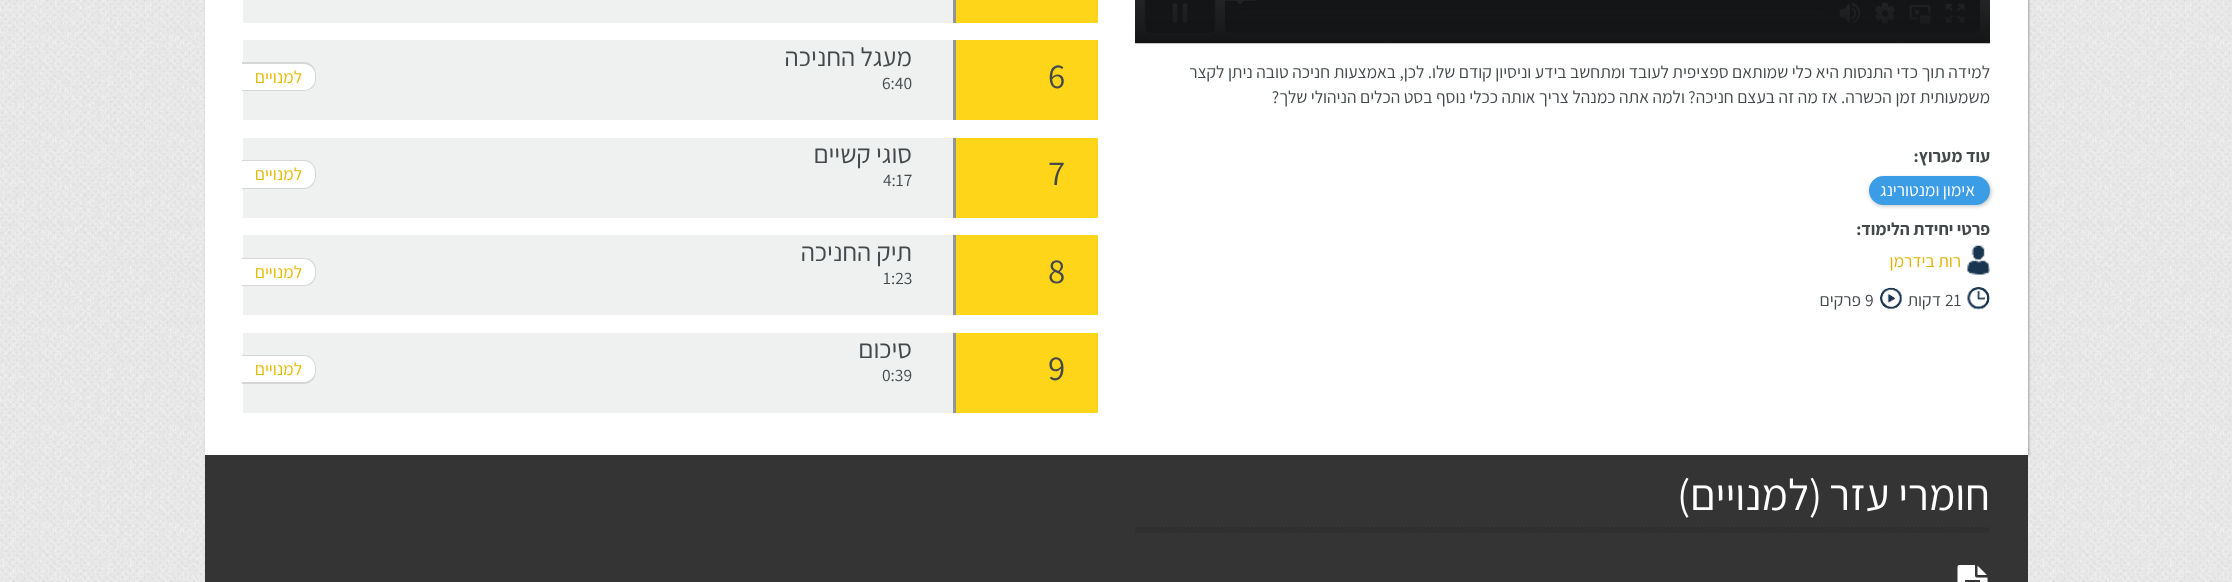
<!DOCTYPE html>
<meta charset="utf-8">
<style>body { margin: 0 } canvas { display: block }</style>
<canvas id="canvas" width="2232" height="582"></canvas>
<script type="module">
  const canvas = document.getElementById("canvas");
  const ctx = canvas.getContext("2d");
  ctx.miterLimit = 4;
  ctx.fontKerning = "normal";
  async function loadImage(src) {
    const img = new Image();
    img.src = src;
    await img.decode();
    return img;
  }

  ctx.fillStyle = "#ffffff";
  ctx.fillRect(0, 0, 2232, 582);
  ctx.drawImage(await loadImage("img1.png"), 0, 0, 2232, 582);
  ctx.fillStyle = "rgba(0, 0, 0, 0.3)";
  ctx.filter = "blur(1px)";
  ctx.beginPath();
  ctx.rect(206, -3, 1823, 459);
  ctx.fill();
  ctx.filter = "none";
  ctx.fillStyle = "#ffffff";
  ctx.fillRect(205, 0, 1823, 455);
  ctx.drawImage(await loadImage("img2.png"), 1135, 0, 855, 44);
  ctx.direction = "rtl";
  ctx.font = "17.5px Assistant";
  ctx.fillStyle = "#43484b";
  ctx.fillText("למידה תוך כדי התנסות היא כלי שמותאם ספציפית לעובד ומתחשב בידע וניסיון קודם שלו. לכן, באמצעות חניכה טובה ניתן לקצר", 1990, 78);
  ctx.fillText("משמעותית זמן הכשרה. אז מה זה בעצם חניכה? ולמה אתה כמנהל צריך אותה ככלי נוסף בסט הכלים הניהולי שלך?", 1990, 103);
  ctx.font = "bold 17.5px Assistant";
  ctx.fillText("עוד מערוץ:", 1990, 162);
  ctx.fillStyle = "rgba(0, 0, 0, 0.25)";
  ctx.filter = "blur(2px)";
  ctx.beginPath();
  ctx.roundRect(1870, 178, 121, 28, 14);
  ctx.fill();
  ctx.filter = "none";
  ctx.fillStyle = "#3b9de6";
  ctx.beginPath();
  ctx.roundRect(1869, 176, 121, 29, 14.5);
  ctx.fill();
  ctx.font = "17.5px Assistant";
  ctx.fillStyle = "#ffffff";
  ctx.fillText("אימון ומנטורינג", 1975, 196);
  ctx.font = "bold 17.5px Assistant";
  ctx.fillStyle = "#43484b";
  ctx.fillText("פרטי יחידת הלימוד:", 1990, 235);
  ctx.drawImage(await loadImage("img3.png"), 1967, 245, 23, 30);
  ctx.font = "17.5px Assistant";
  ctx.fillStyle = "#e0b102";
  ctx.fillText("רות בידרמן", 1961, 267);
  ctx.drawImage(await loadImage("img4.png"), 1967, 287, 23, 23);
  ctx.direction = "ltr";
  ctx.fillStyle = "#43484b";
  ctx.fillText("21", 1945, 306);
  ctx.direction = "rtl";
  ctx.fillText("דקות", 1941, 306);
  ctx.drawImage(await loadImage("img5.png"), 1880, 287, 22, 22);
  ctx.direction = "ltr";
  ctx.fillText("9", 1865, 306);
  ctx.direction = "rtl";
  ctx.fillText("פרקים", 1861, 306);
  ctx.fillStyle = "#ffd51a";
  ctx.fillRect(956, 0, 142, 23);
  ctx.fillStyle = "#eff1f1";
  ctx.fillRect(243, 0, 710, 23);
  ctx.fillStyle = "#939598";
  ctx.fillRect(953, 0, 3, 23);
  ctx.fillStyle = "#ffd51a";
  ctx.fillRect(956, 40, 142, 80);
  ctx.direction = "ltr";
  ctx.font = "35px Assistant";
  ctx.fillStyle = "#43484b";
  ctx.fillText("6", 1048, 88);
  ctx.fillStyle = "#eff1f1";
  ctx.fillRect(243, 40, 710, 80);
  ctx.fillStyle = "#939598";
  ctx.fillRect(953, 40, 3, 80);
  ctx.direction = "rtl";
  ctx.font = "26px Assistant";
  ctx.fillStyle = "#43484b";
  ctx.fillText("מעגל החניכה", 912, 66);
  ctx.direction = "ltr";
  ctx.font = "17.5px Assistant";
  ctx.fillText("6:40", 882, 89);
  ctx.fillStyle = "#ffffff";
  ctx.beginPath();
  ctx.roundRect(243, 63, 73, 28, [0, 13, 13, 0]);
  ctx.fill();
  ctx.fillStyle = "#d5d7d7";
  ctx.beginPath();
  ctx.moveTo(242, 62);
  ctx.lineTo(304, 62);
  ctx.bezierCurveTo(311, 62, 316, 68, 316, 75);
  ctx.lineTo(316, 79);
  ctx.bezierCurveTo(316, 86, 311, 91, 304, 91);
  ctx.lineTo(242, 91);
  ctx.closePath();
  ctx.moveTo(242, 64);
  ctx.lineTo(304, 64);
  ctx.bezierCurveTo(310, 64, 315, 69, 315, 75);
  ctx.lineTo(315, 79);
  ctx.bezierCurveTo(315, 85, 310, 90, 304, 90);
  ctx.lineTo(242, 90);
  ctx.closePath();
  ctx.fill("evenodd");
  ctx.direction = "rtl";
  ctx.fillStyle = "#e4ba00";
  ctx.fillText("למנויים", 302, 83);
  ctx.fillStyle = "#ffd51a";
  ctx.fillRect(956, 138, 142, 80);
  ctx.direction = "ltr";
  ctx.font = "35px Assistant";
  ctx.fillStyle = "#43484b";
  ctx.fillText("7", 1048, 185);
  ctx.fillStyle = "#eff1f1";
  ctx.fillRect(243, 138, 710, 80);
  ctx.fillStyle = "#939598";
  ctx.fillRect(953, 138, 3, 80);
  ctx.direction = "rtl";
  ctx.font = "26px Assistant";
  ctx.fillStyle = "#43484b";
  ctx.fillText("סוגי קשיים", 912, 163);
  ctx.direction = "ltr";
  ctx.font = "17.5px Assistant";
  ctx.fillText("4:17", 883, 186);
  ctx.fillStyle = "#ffffff";
  ctx.beginPath();
  ctx.roundRect(243, 160, 73, 29, [0, 13, 13, 0]);
  ctx.fill();
  ctx.fillStyle = "#d5d7d7";
  ctx.beginPath();
  ctx.moveTo(242, 160);
  ctx.lineTo(304, 160);
  ctx.bezierCurveTo(311, 160, 316, 166, 316, 172);
  ctx.lineTo(316, 176);
  ctx.bezierCurveTo(316, 183, 311, 189, 304, 189);
  ctx.lineTo(242, 189);
  ctx.closePath();
  ctx.moveTo(242, 161);
  ctx.lineTo(304, 161);
  ctx.bezierCurveTo(310, 161, 315, 166, 315, 172);
  ctx.lineTo(315, 176);
  ctx.bezierCurveTo(315, 182, 310, 188, 304, 188);
  ctx.lineTo(242, 188);
  ctx.closePath();
  ctx.fill("evenodd");
  ctx.direction = "rtl";
  ctx.fillStyle = "#e4ba00";
  ctx.fillText("למנויים", 302, 180);
  ctx.fillStyle = "#ffd51a";
  ctx.fillRect(956, 235, 142, 80);
  ctx.direction = "ltr";
  ctx.font = "35px Assistant";
  ctx.fillStyle = "#43484b";
  ctx.fillText("8", 1048, 283);
  ctx.fillStyle = "#eff1f1";
  ctx.fillRect(243, 235, 710, 80);
  ctx.fillStyle = "#939598";
  ctx.fillRect(953, 235, 3, 80);
  ctx.direction = "rtl";
  ctx.font = "26px Assistant";
  ctx.fillStyle = "#43484b";
  ctx.fillText("תיק החניכה", 912, 261);
  ctx.direction = "ltr";
  ctx.font = "17.5px Assistant";
  ctx.fillText("1:23", 883, 284);
  ctx.fillStyle = "#ffffff";
  ctx.beginPath();
  ctx.roundRect(243, 258, 73, 28, [0, 13, 13, 0]);
  ctx.fill();
  ctx.fillStyle = "#d5d7d7";
  ctx.beginPath();
  ctx.moveTo(242, 258);
  ctx.lineTo(304, 258);
  ctx.bezierCurveTo(311, 258, 316, 263, 316, 270);
  ctx.lineTo(316, 274);
  ctx.bezierCurveTo(316, 281, 311, 286, 304, 286);
  ctx.lineTo(242, 286);
  ctx.closePath();
  ctx.moveTo(242, 259);
  ctx.lineTo(304, 259);
  ctx.bezierCurveTo(310, 259, 315, 264, 315, 270);
  ctx.lineTo(315, 274);
  ctx.bezierCurveTo(315, 280, 310, 285, 304, 285);
  ctx.lineTo(242, 285);
  ctx.closePath();
  ctx.fill("evenodd");
  ctx.direction = "rtl";
  ctx.fillStyle = "#e4ba00";
  ctx.fillText("למנויים", 302, 278);
  ctx.fillStyle = "#ffd51a";
  ctx.fillRect(956, 333, 142, 80);
  ctx.direction = "ltr";
  ctx.font = "35px Assistant";
  ctx.fillStyle = "#43484b";
  ctx.fillText("9", 1048, 380);
  ctx.fillStyle = "#eff1f1";
  ctx.fillRect(243, 333, 710, 80);
  ctx.fillStyle = "#939598";
  ctx.fillRect(953, 333, 3, 80);
  ctx.direction = "rtl";
  ctx.font = "26px Assistant";
  ctx.fillStyle = "#43484b";
  ctx.fillText("סיכום", 912, 358);
  ctx.direction = "ltr";
  ctx.font = "17.5px Assistant";
  ctx.fillText("0:39", 882, 381);
  ctx.fillStyle = "#ffffff";
  ctx.beginPath();
  ctx.roundRect(243, 355, 73, 29, [0, 13, 13, 0]);
  ctx.fill();
  ctx.fillStyle = "#d5d7d7";
  ctx.beginPath();
  ctx.moveTo(242, 355);
  ctx.lineTo(304, 355);
  ctx.bezierCurveTo(311, 355, 316, 361, 316, 368);
  ctx.lineTo(316, 371);
  ctx.bezierCurveTo(316, 378, 311, 384, 304, 384);
  ctx.lineTo(242, 384);
  ctx.closePath();
  ctx.moveTo(242, 356);
  ctx.lineTo(304, 356);
  ctx.bezierCurveTo(310, 356, 315, 361, 315, 368);
  ctx.lineTo(315, 371);
  ctx.bezierCurveTo(315, 377, 310, 382, 304, 382);
  ctx.lineTo(242, 382);
  ctx.closePath();
  ctx.fill("evenodd");
  ctx.direction = "rtl";
  ctx.fillStyle = "#e4ba00";
  ctx.fillText("למנויים", 302, 375);
  ctx.fillStyle = "#343434";
  ctx.fillRect(205, 455, 1823, 127);
  ctx.drawImage(await loadImage("img6.png"), 1135, 527, 855, 6);
  ctx.font = "44px Assistant";
  ctx.fillStyle = "#ffffff";
  ctx.fillText("חומרי עזר", 1990, 510);
  ctx.fillText("(למנויים)", 1822, 510);
  ctx.drawImage(await loadImage("img7.png"), 1957, 565, 31, 17);
</script>
